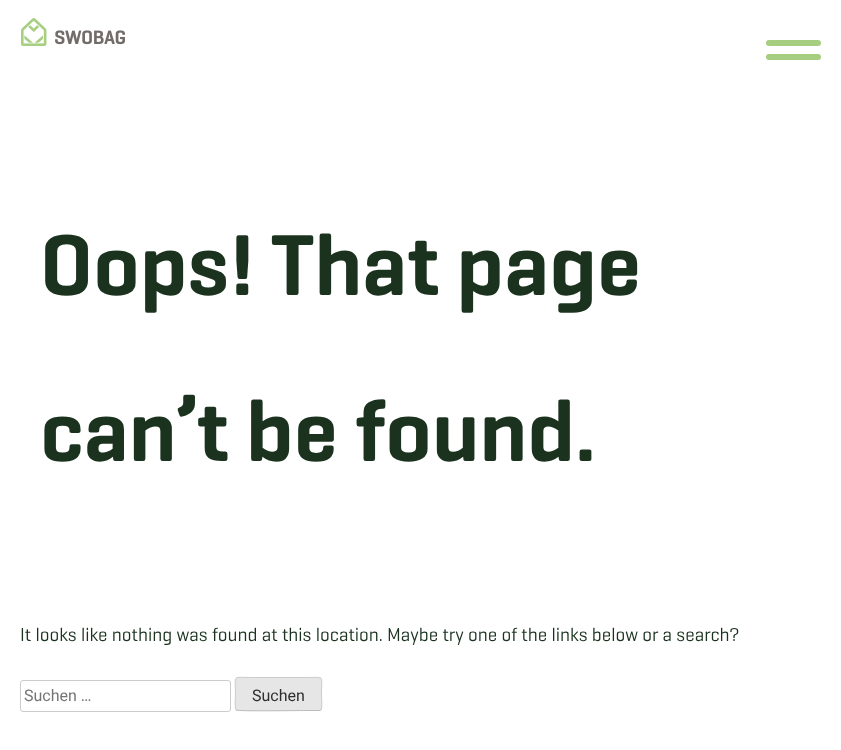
<!DOCTYPE html>
<meta charset="utf-8">
<style>body { margin: 0 } canvas { display: block }</style>
<canvas id="canvas" width="841" height="750"></canvas>
<script type="module">
  const canvas = document.getElementById("canvas");
  const ctx = canvas.getContext("2d");
  ctx.miterLimit = 4;
  ctx.fontKerning = "normal";
  async function loadImage(src) {
    const img = new Image();
    img.src = src;
    await img.decode();
    return img;
  }

  ctx.fillStyle = "#ffffff";
  ctx.fillRect(0, 0, 841, 750);
  ctx.drawImage(await loadImage("img1.png"), 21, 18, 104, 28);
  ctx.fillStyle = "#a7cd80";
  ctx.beginPath();
  ctx.roundRect(766, 40, 55, 6, 3);
  ctx.fill();
  ctx.beginPath();
  ctx.roundRect(766, 54, 55, 6, 3);
  ctx.fill();
  ctx.font = "600 88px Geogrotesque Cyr";
  ctx.fillStyle = "#1a321e";
  ctx.fillText("Oops! That page", 40, 295);
  ctx.fillText("can’t be found.", 40, 461);
  ctx.font = "19px Geogrotesque Cyr";
  ctx.fillText("It looks like nothing was found at this location. Maybe try one of the links below or a search?", 20, 641);
  ctx.beginPath();
  ctx.roundRect(20.5, 680.5, 210, 31, 2.5);
  ctx.strokeStyle = "#cccccc";
  ctx.stroke();
  ctx.font = "16px Roboto";
  ctx.fillStyle = "#757575";
  ctx.fillText("Suchen …", 24, 701);
  ctx.fillStyle = "#e6e6e6";
  ctx.beginPath();
  ctx.roundRect(235, 677, 87, 34, 3);
  ctx.fill();
  ctx.beginPath();
  ctx.moveTo(321, 710);
  ctx.lineTo(319, 710.5);
  ctx.lineTo(305.5, 710.5);
  ctx.bezierCurveTo(298, 710.5, 238.5, 711.5, 236.5, 710);
  ctx.lineTo(236, 710);
  ctx.strokeStyle = "#bbbbbb";
  ctx.stroke();
  ctx.beginPath();
  ctx.moveTo(236, 710);
  ctx.bezierCurveTo(234.5, 708, 235.5, 696.5, 235.5, 694);
  ctx.bezierCurveTo(235.5, 674.5, 231.5, 677.5, 251.5, 677.5);
  ctx.lineTo(305.5, 677.5);
  ctx.bezierCurveTo(325.5, 677.5, 321.5, 674.5, 321.5, 694);
  ctx.bezierCurveTo(321.5, 696.5, 322.5, 708, 321, 710);
  ctx.strokeStyle = "#cccccc";
  ctx.stroke();
  ctx.fillStyle = "#2e2e2e";
  ctx.fillText("Suchen", 252, 701);
</script>
